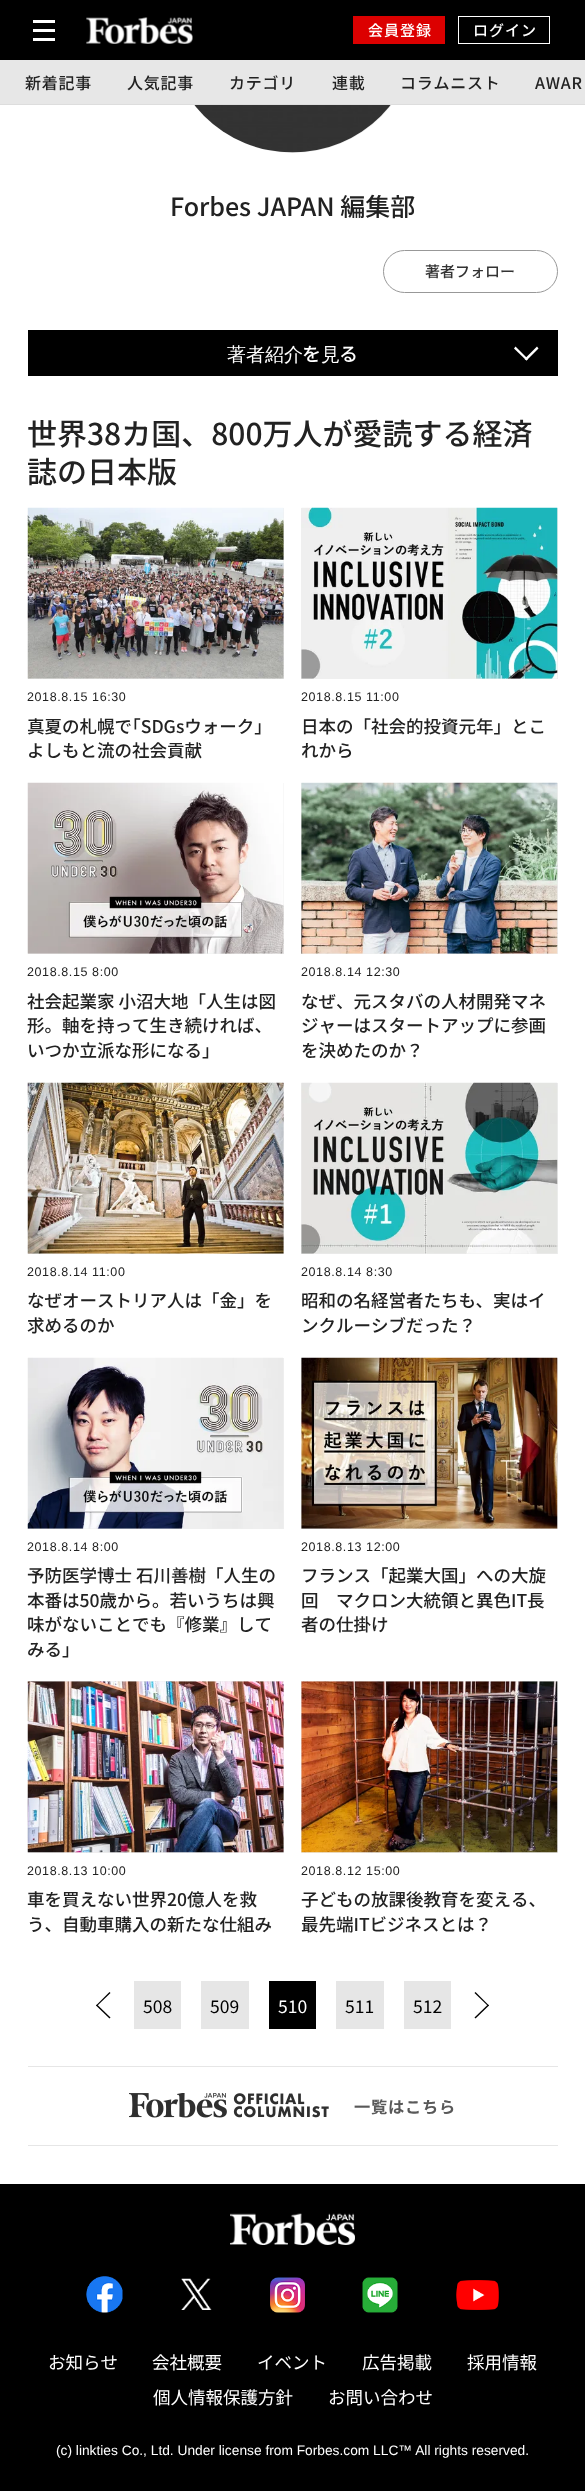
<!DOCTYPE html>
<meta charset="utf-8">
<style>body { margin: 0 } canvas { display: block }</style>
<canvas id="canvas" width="585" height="2491"></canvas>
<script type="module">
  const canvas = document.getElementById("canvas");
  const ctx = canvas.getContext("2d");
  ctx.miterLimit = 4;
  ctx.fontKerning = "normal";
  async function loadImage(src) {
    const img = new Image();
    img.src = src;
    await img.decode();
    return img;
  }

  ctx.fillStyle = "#ffffff";
  ctx.fillRect(0, 0, 585, 2491);
  ctx.fillStyle = "#eeeeee";
  ctx.beginPath();
  ctx.arc(293, 28, 125, 0, Math.PI * 2);
  ctx.fill();
  ctx.fillStyle = "#dddddd";
  ctx.fillRect(0, 104, 585, 1);
  ctx.fillStyle = "#000000";
  ctx.fillRect(0, 0, 585, 60);
  ctx.fillStyle = "#ffffff";
  ctx.fillRect(33, 20, 22, 3);
  ctx.fillRect(33, 29, 22, 3);
  ctx.fillRect(33, 38, 22, 3);
  ctx.drawImage(await loadImage("img1.png"), 86, 17, 107, 27);
  ctx.fillStyle = "#dc0000";
  ctx.fillRect(353, 16, 92, 28);
  ctx.letterSpacing = "1px";
  ctx.font = "500 15px Noto Sans JP";
  ctx.fillStyle = "#ffffff";
  ctx.fillText("会員登録", 368, 36);
  ctx.strokeStyle = "#ffffff";
  ctx.strokeRect(458.5, 16.5, 91, 27);
  ctx.fillText("ログイン", 473, 36);
  ctx.fillStyle = "#e7e7e7";
  ctx.fillRect(0, 60, 585, 44);
  ctx.letterSpacing = "0.75px";
  ctx.font = "500 16px Noto Sans JP";
  ctx.fillStyle = "#222222";
  ctx.fillText("新着記事", 25, 89);
  ctx.fillText("人気記事", 127, 89);
  ctx.fillText("カテゴリ", 229, 89);
  ctx.fillText("連載", 332, 89);
  ctx.fillText("コラムニスト", 400, 89);
  ctx.fillText("AWAR", 535, 89);
  ctx.drawImage(await loadImage("img2.png"), 194, 105, 197, 48);
  ctx.letterSpacing = "0px";
  ctx.font = "500 25px Noto Sans JP";
  ctx.fillText("Forbes JAPAN 編集部", 170, 216);
  ctx.beginPath();
  ctx.roundRect(383.5, 250.5, 174, 42, 21);
  ctx.strokeStyle = "#989898";
  ctx.stroke();
  ctx.font = "500 15px Noto Sans JP";
  ctx.fillStyle = "#333333";
  ctx.fillText("著者フォロー", 425, 277);
  ctx.fillStyle = "#000000";
  ctx.fillRect(28, 330, 530, 46);
  ctx.font = "500 19px WenQuanYi Zen Hei";
  ctx.fillStyle = "#ffffff";
  ctx.fillText("著者紹介", 227, 361);
  ctx.font = "500 19px Noto Sans JP";
  ctx.fillText("を", 302, 361);
  ctx.font = "500 19px WenQuanYi Zen Hei";
  ctx.fillText("⾒", 321, 361);
  ctx.font = "500 19px Noto Sans JP";
  ctx.fillText("る", 339, 361);
  ctx.beginPath();
  ctx.moveTo(537, 346.5);
  ctx.lineTo(538.5, 348.5);
  ctx.lineTo(526.5, 360.5);
  ctx.lineTo(524.5, 359);
  ctx.closePath();
  ctx.fill();
  ctx.beginPath();
  ctx.moveTo(515.5, 346.5);
  ctx.lineTo(528, 359);
  ctx.lineTo(526.5, 360.5);
  ctx.lineTo(514, 348.5);
  ctx.closePath();
  ctx.fill();
  ctx.font = "500 30px Noto Sans JP";
  ctx.fillStyle = "#222222";
  ctx.fillText("世界38カ国、800万人が愛読する経済", 27, 445);
  ctx.fillText("誌の日本版", 27, 483);
  ctx.fillStyle = "#eeeeee";
  ctx.fillRect(28, 508, 256, 171);
  ctx.drawImage(await loadImage("img3.png"), 27, 507, 257, 172);
  ctx.letterSpacing = "0.6px";
  ctx.font = "12.5px Liberation Sans";
  ctx.fillStyle = "#222222";
  ctx.fillText("2018.8.15 16:30", 27, 701);
  ctx.letterSpacing = "0px";
  ctx.font = "500 17.5px Noto Sans JP";
  ctx.fillText("真夏の札幌で｢SDGsウォーク｣", 27, 733);
  ctx.fillText("よしもと流の社会貢献", 27, 757);
  ctx.fillStyle = "#eeeeee";
  ctx.fillRect(301, 508, 257, 171);
  ctx.drawImage(await loadImage("img4.png"), 301, 507, 257, 172);
  ctx.letterSpacing = "0.6px";
  ctx.font = "12.5px Liberation Sans";
  ctx.fillStyle = "#222222";
  ctx.fillText("2018.8.15 11:00", 301, 701);
  ctx.letterSpacing = "0px";
  ctx.font = "500 17.5px Noto Sans JP";
  ctx.fillText("日本の「社会的投資元年」とこ", 301, 733);
  ctx.fillText("れから", 301, 757);
  ctx.fillStyle = "#eeeeee";
  ctx.fillRect(28, 783, 256, 171);
  ctx.drawImage(await loadImage("img5.png"), 27, 782, 257, 172);
  ctx.letterSpacing = "0.6px";
  ctx.font = "12.5px Liberation Sans";
  ctx.fillStyle = "#222222";
  ctx.fillText("2018.8.15 8:00", 27, 976);
  ctx.letterSpacing = "0px";
  ctx.font = "500 17.5px Noto Sans JP";
  ctx.fillText("社会起業家 小沼大地「人生は図", 27, 1008);
  ctx.fillText("形。軸を持って生き続ければ、", 27, 1032);
  ctx.fillText("いつか立派な形になる」", 27, 1057);
  ctx.fillStyle = "#eeeeee";
  ctx.fillRect(301, 783, 257, 171);
  ctx.drawImage(await loadImage("img6.png"), 301, 782, 257, 172);
  ctx.letterSpacing = "0.6px";
  ctx.font = "12.5px Liberation Sans";
  ctx.fillStyle = "#222222";
  ctx.fillText("2018.8.14 12:30", 301, 976);
  ctx.letterSpacing = "0px";
  ctx.font = "500 17.5px Noto Sans JP";
  ctx.fillText("なぜ、元スタバの人材開発マネ", 301, 1008);
  ctx.fillText("ジャーはスタートアップに参画", 301, 1032);
  ctx.fillText("を決めたのか？", 301, 1057);
  ctx.fillStyle = "#eeeeee";
  ctx.fillRect(28, 1083, 256, 171);
  ctx.drawImage(await loadImage("img7.png"), 27, 1082, 257, 172);
  ctx.letterSpacing = "0.6px";
  ctx.font = "12.5px Liberation Sans";
  ctx.fillStyle = "#222222";
  ctx.fillText("2018.8.14 11:00", 27, 1276);
  ctx.letterSpacing = "0px";
  ctx.font = "500 17.5px Noto Sans JP";
  ctx.fillText("なぜオーストリア人は「金」を", 27, 1307);
  ctx.fillText("求めるのか", 27, 1332);
  ctx.fillStyle = "#eeeeee";
  ctx.fillRect(301, 1083, 257, 171);
  ctx.drawImage(await loadImage("img8.png"), 301, 1082, 257, 172);
  ctx.letterSpacing = "0.6px";
  ctx.font = "12.5px Liberation Sans";
  ctx.fillStyle = "#222222";
  ctx.fillText("2018.8.14 8:30", 301, 1276);
  ctx.letterSpacing = "0px";
  ctx.font = "500 17.5px Noto Sans JP";
  ctx.fillText("昭和の名経営者たちも、実はイ", 301, 1307);
  ctx.fillText("ンクルーシブだった？", 301, 1332);
  ctx.fillStyle = "#eeeeee";
  ctx.fillRect(28, 1358, 256, 171);
  ctx.drawImage(await loadImage("img9.png"), 27, 1357, 256, 172);
  ctx.letterSpacing = "0.6px";
  ctx.font = "12.5px Liberation Sans";
  ctx.fillStyle = "#222222";
  ctx.fillText("2018.8.14 8:00", 27, 1551);
  ctx.letterSpacing = "0px";
  ctx.font = "500 17.5px Noto Sans JP";
  ctx.fillText("予防医学博士 石川善樹「人生の", 27, 1582);
  ctx.fillText("本番は50歳から。若いうちは興", 27, 1607);
  ctx.fillText("味がないことでも『修業』して", 27, 1631);
  ctx.fillText("みる」", 27, 1656);
  ctx.fillStyle = "#eeeeee";
  ctx.fillRect(301, 1358, 257, 171);
  ctx.drawImage(await loadImage("img10.png"), 301, 1357, 257, 172);
  ctx.letterSpacing = "0.6px";
  ctx.font = "12.5px Liberation Sans";
  ctx.fillStyle = "#222222";
  ctx.fillText("2018.8.13 12:00", 301, 1551);
  ctx.letterSpacing = "0px";
  ctx.font = "500 17.5px Noto Sans JP";
  ctx.fillText("フランス「起業大国」への大旋", 301, 1582);
  ctx.fillText("回　マクロン大統領と異色IT長", 301, 1607);
  ctx.fillText("者の仕掛け", 301, 1631);
  ctx.fillStyle = "#eeeeee";
  ctx.fillRect(28, 1681, 256, 172);
  ctx.drawImage(await loadImage("img11.png"), 27, 1681, 257, 172);
  ctx.letterSpacing = "0.6px";
  ctx.font = "12.5px Liberation Sans";
  ctx.fillStyle = "#222222";
  ctx.fillText("2018.8.13 10:00", 27, 1875);
  ctx.letterSpacing = "0px";
  ctx.font = "500 17.5px Noto Sans JP";
  ctx.fillText("車を買えない世界20億人を救", 27, 1906);
  ctx.fillText("う、自動車購入の新たな仕組み", 27, 1931);
  ctx.fillStyle = "#eeeeee";
  ctx.fillRect(301, 1681, 257, 172);
  ctx.drawImage(await loadImage("img12.png"), 301, 1681, 257, 172);
  ctx.letterSpacing = "0.6px";
  ctx.font = "12.5px Liberation Sans";
  ctx.fillStyle = "#222222";
  ctx.fillText("2018.8.12 15:00", 301, 1875);
  ctx.letterSpacing = "0px";
  ctx.font = "500 17.5px Noto Sans JP";
  ctx.fillText("子どもの放課後教育を変える、", 301, 1906);
  ctx.fillText("最先端ITビジネスとは？", 301, 1931);
  ctx.fillStyle = "#000000";
  ctx.beginPath();
  ctx.moveTo(109.5, 2018.5);
  ctx.lineTo(96, 2005.5);
  ctx.lineTo(97, 2004.5);
  ctx.lineTo(110.5, 2017.5);
  ctx.closePath();
  ctx.fill();
  ctx.beginPath();
  ctx.moveTo(97, 2006);
  ctx.lineTo(96, 2005.5);
  ctx.lineTo(109.5, 1992);
  ctx.lineTo(110.5, 1993);
  ctx.closePath();
  ctx.fill();
  ctx.fillStyle = "#e6e6e6";
  ctx.fillRect(134, 1981, 47, 48);
  ctx.font = "17.5px Noto Sans JP";
  ctx.fillStyle = "#000000";
  ctx.fillText("508", 143, 2013);
  ctx.fillStyle = "#e6e6e6";
  ctx.fillRect(201, 1981, 48, 48);
  ctx.fillStyle = "#000000";
  ctx.fillText("509", 210, 2013);
  ctx.fillRect(269, 1981, 47, 48);
  ctx.fillStyle = "#ffffff";
  ctx.fillText("510", 278, 2013);
  ctx.fillStyle = "#e6e6e6";
  ctx.fillRect(336, 1981, 48, 48);
  ctx.fillStyle = "#000000";
  ctx.fillText("511", 345, 2013);
  ctx.fillStyle = "#e6e6e6";
  ctx.fillRect(404, 1981, 47, 48);
  ctx.fillStyle = "#000000";
  ctx.fillText("512", 413, 2013);
  ctx.beginPath();
  ctx.moveTo(475.5, 1992);
  ctx.lineTo(489, 2005.5);
  ctx.lineTo(488, 2006);
  ctx.lineTo(474.5, 1993);
  ctx.closePath();
  ctx.fill();
  ctx.beginPath();
  ctx.moveTo(488, 2004.5);
  ctx.lineTo(489, 2005.5);
  ctx.lineTo(475.5, 2018.5);
  ctx.lineTo(474.5, 2017.5);
  ctx.closePath();
  ctx.fill();
  ctx.fillStyle = "#e6e6e6";
  ctx.fillRect(28, 2066, 530, 1);
  ctx.fillRect(28, 2145, 530, 1);
  ctx.drawImage(await loadImage("img13.png"), 129, 2093, 200, 25);
  ctx.letterSpacing = "0.75px";
  ctx.font = "bold 16.25px Noto Sans JP";
  ctx.fillStyle = "#595959";
  ctx.fillText("一覧はこちら", 354, 2113);
  ctx.fillStyle = "#000000";
  ctx.fillRect(0, 2184, 585, 307);
  ctx.drawImage(await loadImage("img14.png"), 230, 2213, 125, 32);
  ctx.drawImage(await loadImage("img15.png"), 86, 2276, 37, 37);
  ctx.drawImage(await loadImage("img16.png"), 181, 2278, 31, 32);
  ctx.drawImage(await loadImage("img17.png"), 270, 2277, 35, 36);
  ctx.drawImage(await loadImage("img18.png"), 362, 2277, 36, 36);
  ctx.drawImage(await loadImage("img19.png"), 456, 2280, 43, 30);
  ctx.letterSpacing = "0px";
  ctx.font = "17.5px Noto Sans JP";
  ctx.fillStyle = "#ffffff";
  ctx.fillText("お知らせ", 48, 2369);
  ctx.fillText("会社概要", 152, 2369);
  ctx.fillText("イベント", 257, 2369);
  ctx.fillText("広告掲載", 362, 2369);
  ctx.fillText("採用情報", 467, 2369);
  ctx.fillText("個人情報保護方針", 153, 2404);
  ctx.fillText("お問い合わせ", 328, 2404);
  ctx.font = "13.75px Liberation Sans";
  ctx.fillText("(c) linkties Co., Ltd. Under license from Forbes.com LLC™ All rights reserved.", 56, 2455);
</script>
